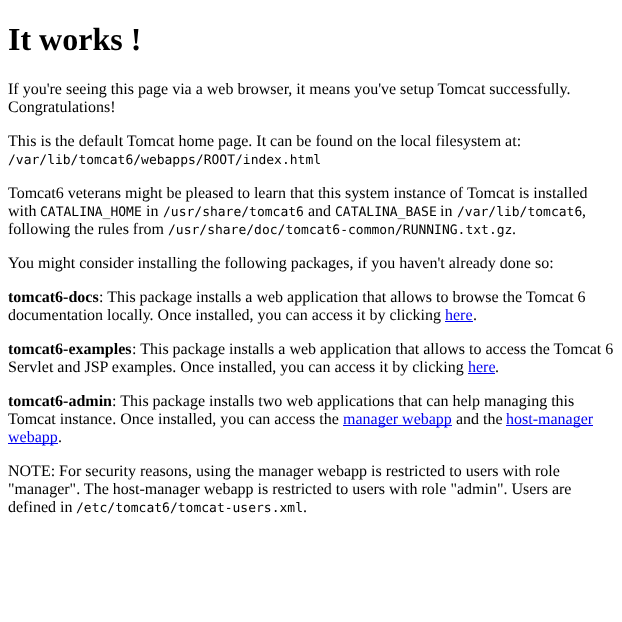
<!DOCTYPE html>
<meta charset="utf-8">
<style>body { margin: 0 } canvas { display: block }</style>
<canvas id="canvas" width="622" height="622"></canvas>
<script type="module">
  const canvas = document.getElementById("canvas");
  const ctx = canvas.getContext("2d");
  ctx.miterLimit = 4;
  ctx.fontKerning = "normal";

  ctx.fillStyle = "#ffffff";
  ctx.fillRect(0, 0, 622, 622);
  ctx.font = "bold 32px Liberation Serif";
  ctx.fillStyle = "#000000";
  ctx.fillText("It works !", 8, 50);
  ctx.font = "16px Liberation Serif";
  ctx.fillText("If you're seeing this page via a web browser, it means you've setup Tomcat successfully.", 8, 94);
  ctx.fillText("Congratulations!", 8, 112);
  ctx.fillText("This is the default Tomcat home page. It can be found on the local filesystem at:", 8, 146);
  ctx.font = "13px DejaVu Sans Mono";
  ctx.fillText("/var/lib/tomcat6/webapps/ROOT/index.html", 8, 164);
  ctx.font = "16px Liberation Serif";
  ctx.fillText("Tomcat6 veterans might be pleased to learn that this system instance of Tomcat is installed", 8, 198);
  ctx.fillText("with", 8, 216);
  ctx.font = "13px DejaVu Sans Mono";
  ctx.fillText("CATALINA_HOME", 40, 216);
  ctx.font = "16px Liberation Serif";
  ctx.fillText("in", 146, 216);
  ctx.font = "13px DejaVu Sans Mono";
  ctx.fillText("/usr/share/tomcat6", 163, 216);
  ctx.font = "16px Liberation Serif";
  ctx.fillText("and", 308, 216);
  ctx.font = "13px DejaVu Sans Mono";
  ctx.fillText("CATALINA_BASE", 335, 216);
  ctx.font = "16px Liberation Serif";
  ctx.fillText("in", 440, 216);
  ctx.font = "13px DejaVu Sans Mono";
  ctx.fillText("/var/lib/tomcat6", 457, 216);
  ctx.font = "16px Liberation Serif";
  ctx.fillText(",", 582, 216);
  ctx.fillText("following the rules from", 8, 234);
  ctx.font = "13px DejaVu Sans Mono";
  ctx.fillText("/usr/share/doc/tomcat6-common/RUNNING.txt.gz", 168, 234);
  ctx.font = "16px Liberation Serif";
  ctx.fillText(".", 512, 234);
  ctx.fillText("You might consider installing the following packages, if you haven't already done so:", 8, 268);
  ctx.font = "bold 16px Liberation Serif";
  ctx.fillText("tomcat6-docs", 8, 302);
  ctx.font = "16px Liberation Serif";
  ctx.fillText(": This package installs a web application that allows to browse the Tomcat 6", 99, 302);
  ctx.fillText("documentation locally. Once installed, you can access it by clicking", 8, 320);
  ctx.fillStyle = "#0000ee";
  ctx.fillText("here", 445, 320);
  ctx.fillRect(445, 321, 28, 1);
  ctx.fillStyle = "#000000";
  ctx.fillText(".", 473, 320);
  ctx.font = "bold 16px Liberation Serif";
  ctx.fillText("tomcat6-examples", 8, 354);
  ctx.font = "16px Liberation Serif";
  ctx.fillText(": This package installs a web application that allows to access the Tomcat 6", 132, 354);
  ctx.fillText("Servlet and JSP examples. Once installed, you can access it by clicking", 8, 372);
  ctx.fillStyle = "#0000ee";
  ctx.fillText("here", 468, 372);
  ctx.fillRect(468, 373, 27, 1);
  ctx.fillStyle = "#000000";
  ctx.fillText(".", 495, 372);
  ctx.font = "bold 16px Liberation Serif";
  ctx.fillText("tomcat6-admin", 8, 406);
  ctx.font = "16px Liberation Serif";
  ctx.fillText(": This package installs two web applications that can help managing this", 112, 406);
  ctx.fillText("Tomcat instance. Once installed, you can access the", 8, 424);
  ctx.fillStyle = "#0000ee";
  ctx.fillRect(343, 425, 109, 1);
  ctx.fillText("manager webapp", 343, 424);
  ctx.fillStyle = "#000000";
  ctx.fillText("and the", 456, 424);
  ctx.fillStyle = "#0000ee";
  ctx.fillRect(506, 425, 87, 1);
  ctx.fillText("host-manager", 506, 424);
  ctx.fillRect(8, 443, 50, 1);
  ctx.fillText("webapp", 8, 442);
  ctx.fillStyle = "#000000";
  ctx.fillText(".", 58, 442);
  ctx.fillText("NOTE: For security reasons, using the manager webapp is restricted to users with role", 8, 476);
  ctx.fillText("\"manager\". The host-manager webapp is restricted to users with role \"admin\". Users are", 8, 494);
  ctx.fillText("defined in", 8, 512);
  ctx.font = "13px DejaVu Sans Mono";
  ctx.fillText("/etc/tomcat6/tomcat-users.xml", 76, 512);
  ctx.font = "16px Liberation Serif";
  ctx.fillText(".", 303, 512);
</script>
